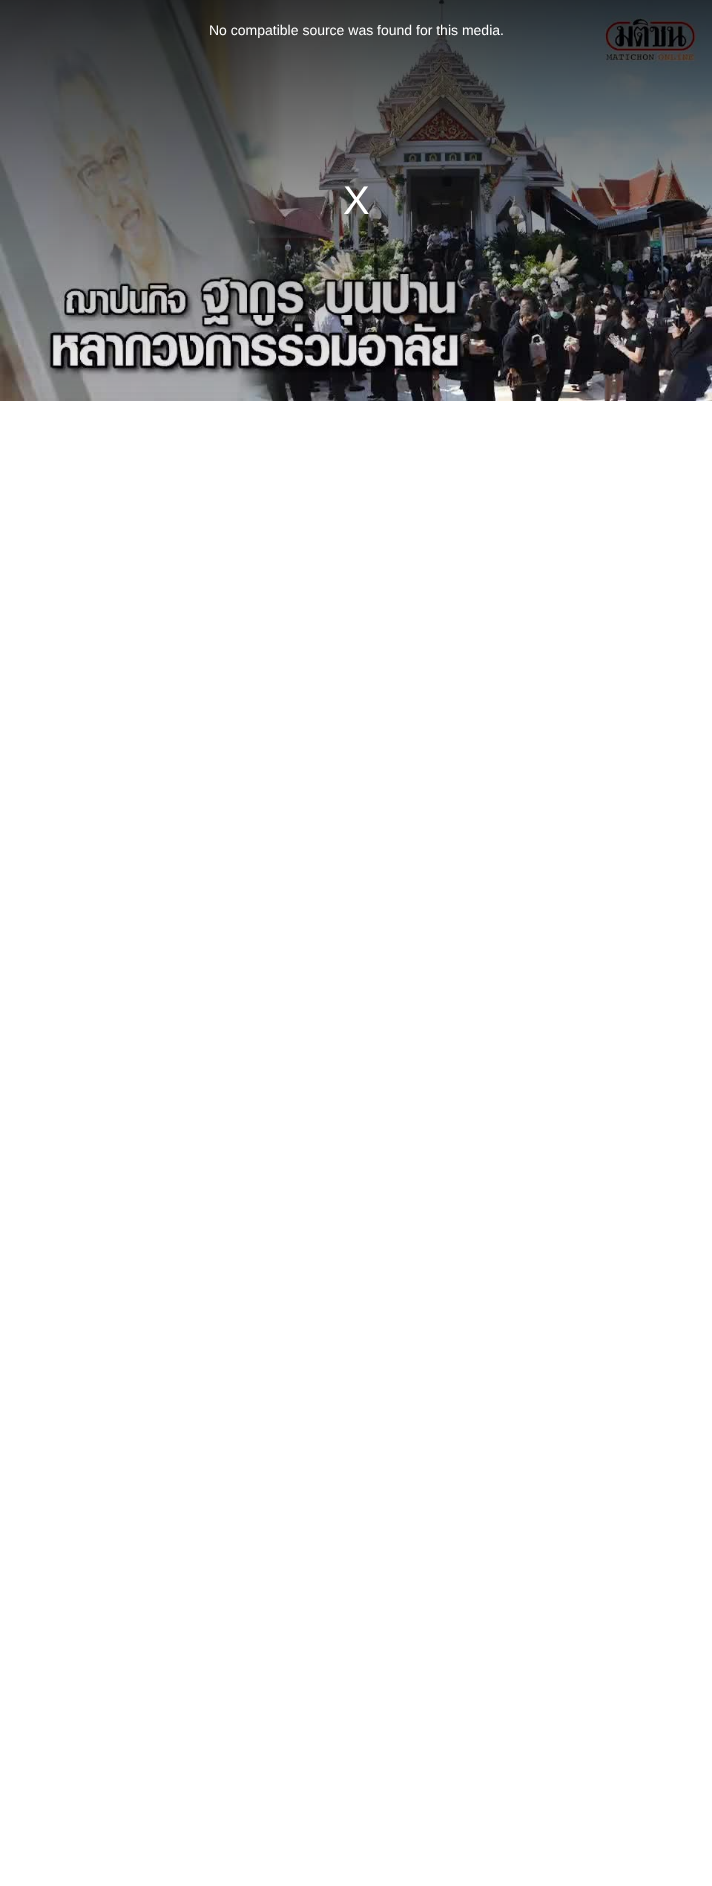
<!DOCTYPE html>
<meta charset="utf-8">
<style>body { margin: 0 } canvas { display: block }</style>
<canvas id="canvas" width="712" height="1886"></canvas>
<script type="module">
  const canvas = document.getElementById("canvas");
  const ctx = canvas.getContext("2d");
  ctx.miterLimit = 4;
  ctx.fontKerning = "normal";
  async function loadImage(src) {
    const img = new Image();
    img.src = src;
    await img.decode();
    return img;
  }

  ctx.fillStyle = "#ffffff";
  ctx.fillRect(0, 0, 712, 1886);
  ctx.drawImage(await loadImage("img1.png"), 0, 0, 712, 401);
  ctx.font = "14px Liberation Sans";
  ctx.fillText("No compatible source was found for this media.", 209, 35);
  ctx.font = "40px Liberation Sans";
  ctx.fillText("X", 343, 214);
</script>
